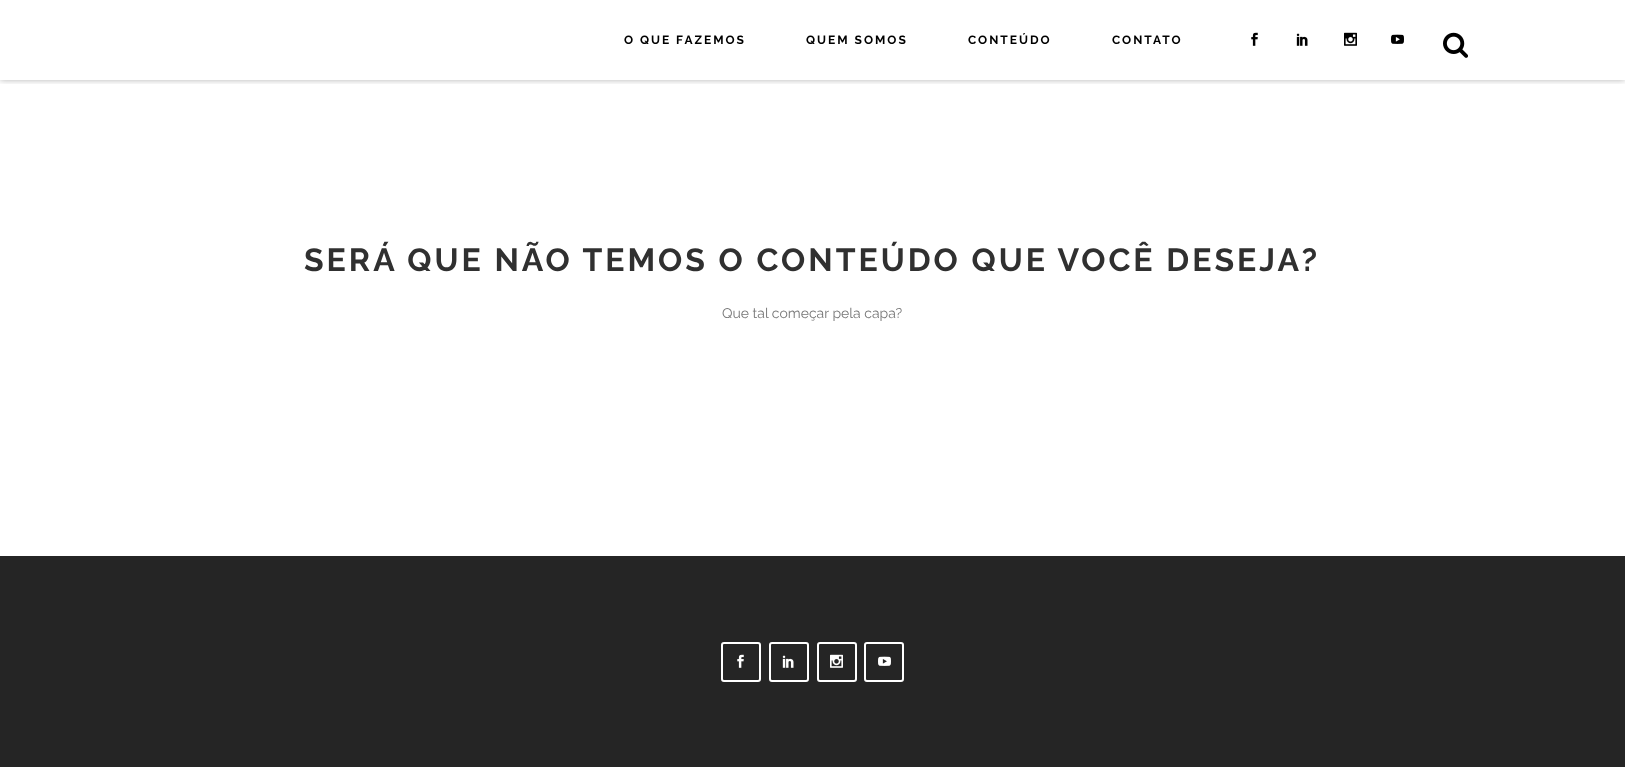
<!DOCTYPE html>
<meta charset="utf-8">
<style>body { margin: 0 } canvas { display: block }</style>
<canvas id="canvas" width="1625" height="778"></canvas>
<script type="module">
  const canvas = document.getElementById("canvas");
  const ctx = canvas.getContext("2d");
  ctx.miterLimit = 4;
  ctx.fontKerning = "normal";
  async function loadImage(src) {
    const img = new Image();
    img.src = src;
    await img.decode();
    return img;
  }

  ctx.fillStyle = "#ffffff";
  ctx.fillRect(0, 0, 1625, 778);
  ctx.save();
  ctx.beginPath();
  ctx.rect(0, 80, 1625, 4);
  ctx.clip();
  ctx.fillStyle = "rgba(1, 1, 1, 0.3)";
  ctx.filter = "blur(3px)";
  ctx.beginPath();
  ctx.rect(0, 0, 1625, 80);
  ctx.fill();
  ctx.filter = "none";
  ctx.restore();
  ctx.letterSpacing = "2px";
  ctx.font = "bold 12px Raleway";
  ctx.fillStyle = "#000000";
  ctx.fillText("O QUE FAZEMOS", 624, 44);
  ctx.fillText("QUEM SOMOS", 806, 44);
  ctx.fillText("CONTEÚDO", 968, 44);
  ctx.fillText("CONTATO", 1112, 44);
  ctx.drawImage(await loadImage("img1.png"), 1251, 32, 7, 14);
  ctx.drawImage(await loadImage("img2.png"), 1296, 33, 12, 13);
  ctx.drawImage(await loadImage("img3.png"), 1344, 32, 13, 14);
  ctx.drawImage(await loadImage("img4.png"), 1391, 34, 13, 10);
  ctx.drawImage(await loadImage("img5.png"), 1443, 32, 25, 26);
  ctx.letterSpacing = "3px";
  ctx.font = "bold 32px Raleway";
  ctx.fillStyle = "#303030";
  ctx.fillText("SERÁ QUE NÃO TEMOS O CONTEÚDO QUE VOCÊ DESEJA?", 304, 271);
  ctx.letterSpacing = "0px";
  ctx.font = "14px Raleway";
  ctx.fillStyle = "#777777";
  ctx.fillText("Que tal começar pela capa?", 722, 318);
  ctx.fillStyle = "#252525";
  ctx.fillRect(0, 556, 1625, 211);
  ctx.beginPath();
  ctx.roundRect(722, 643, 38, 38, 2);
  ctx.strokeStyle = "#ffffff";
  ctx.lineWidth = 2;
  ctx.stroke();
  ctx.drawImage(await loadImage("img6.png"), 737, 654, 7, 14);
  ctx.beginPath();
  ctx.roundRect(770, 643, 38, 38, 2);
  ctx.stroke();
  ctx.drawImage(await loadImage("img7.png"), 782, 655, 12, 13);
  ctx.beginPath();
  ctx.roundRect(818, 643, 38, 38, 2);
  ctx.stroke();
  ctx.drawImage(await loadImage("img8.png"), 830, 654, 13, 14);
  ctx.beginPath();
  ctx.roundRect(865, 643, 38, 38, 2);
  ctx.stroke();
  ctx.drawImage(await loadImage("img9.png"), 878, 656, 13, 10);
</script>
